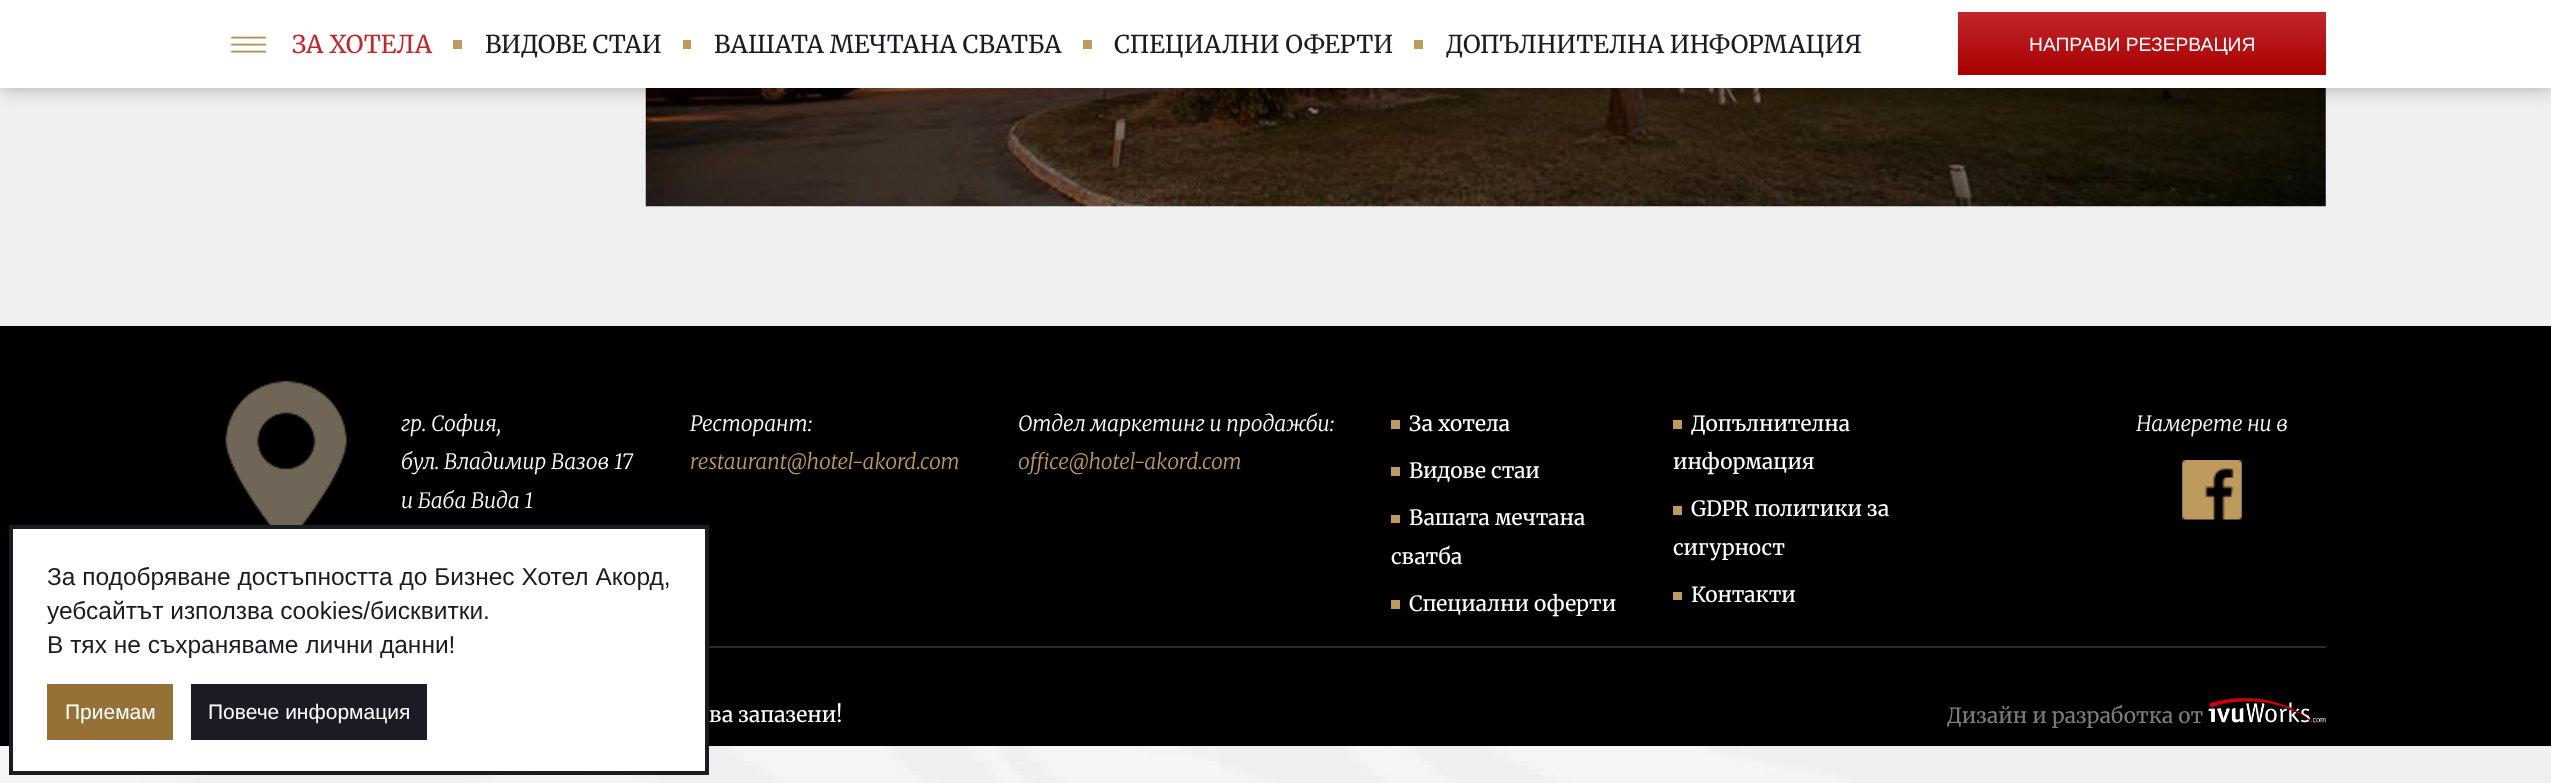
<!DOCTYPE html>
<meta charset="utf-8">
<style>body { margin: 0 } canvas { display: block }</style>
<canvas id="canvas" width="2551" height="783"></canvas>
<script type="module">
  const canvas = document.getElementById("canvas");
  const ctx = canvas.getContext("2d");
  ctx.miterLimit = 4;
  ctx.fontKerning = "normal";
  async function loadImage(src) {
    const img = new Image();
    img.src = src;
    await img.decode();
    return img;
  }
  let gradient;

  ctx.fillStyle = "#efefef";
  ctx.fillRect(0, 0, 2551, 783);
  ctx.drawImage(await loadImage("img1.png"), 0, 746, 1850, 37);
  ctx.drawImage(await loadImage("img3.png"), 645, 88, 1681, 119);
  ctx.fillStyle = "rgba(0, 0, 0, 0.3)";
  ctx.filter = "blur(9px)";
  ctx.beginPath();
  ctx.rect(0, 0, 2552, 88);
  ctx.fill();
  ctx.filter = "none";
  ctx.fillStyle = "#ffffff";
  ctx.fillRect(0, 0, 2551, 88);
  ctx.drawImage(await loadImage("img2.png"), 230, 36, 37, 17);
  ctx.font = "24.5px Merriweather";
  ctx.fillStyle = "#c1272d";
  ctx.fillText("ЗА ХОТЕЛА", 292, 53);
  ctx.fillStyle = "#bf9a5e";
  ctx.fillRect(453, 40, 9, 9);
  ctx.fillStyle = "#1a1b25";
  ctx.fillText("ВИДОВЕ СТАИ", 485, 53);
  ctx.fillStyle = "#bf9a5e";
  ctx.fillRect(683, 40, 8, 9);
  ctx.fillStyle = "#1a1b25";
  ctx.fillText("ВАШАТА МЕЧТАНА СВАТБА", 714, 53);
  ctx.fillStyle = "#bf9a5e";
  ctx.fillRect(1083, 40, 9, 9);
  ctx.fillStyle = "#1a1b25";
  ctx.fillText("СПЕЦИАЛНИ ОФЕРТИ", 1114, 53);
  ctx.fillStyle = "#bf9a5e";
  ctx.fillRect(1414, 40, 9, 9);
  ctx.fillStyle = "#1a1b25";
  ctx.fillText("ДОПЪЛНИТЕЛНА ИНФОРМАЦИЯ", 1446, 53);
  gradient = ctx.createLinearGradient(2142, 12, 2142, 75);
  gradient.addColorStop(0, "#c1272d");
  gradient.addColorStop(1, "#a80000");
  ctx.fillStyle = gradient;
  ctx.fillRect(1958, 12, 368, 63);
  ctx.font = "19.25px Liberation Sans";
  ctx.fillStyle = "#ffffff";
  ctx.fillText("НАПРАВИ РЕЗЕРВАЦИЯ", 2029, 51);
  ctx.fillStyle = "#000000";
  ctx.fillRect(0, 326, 2551, 420);
  ctx.fillStyle = "#ffffff";
  ctx.beginPath();
  ctx.rect(11, 527, 696, 246);
  ctx.fill();
  ctx.strokeStyle = "#1a1b25";
  ctx.lineWidth = 4;
  ctx.stroke();
  ctx.font = "24.5px Liberation Sans";
  ctx.fillStyle = "#1a1b25";
  ctx.fillText("За подобряване достъпността до Бизнес Хотел Акорд,", 47, 585);
  ctx.fillText("уебсайтът използва cookies/бисквитки.", 47, 619);
  ctx.fillText("В тях не съхраняваме лични данни!", 47, 653);
  ctx.fillStyle = "#957136";
  ctx.fillRect(47, 684, 126, 56);
  ctx.font = "21px Liberation Sans";
  ctx.fillStyle = "#ffffff";
  ctx.fillText("Приемам", 65, 719);
  ctx.fillStyle = "#1a1b25";
  ctx.fillRect(191, 684, 236, 56);
  ctx.fillStyle = "#ffffff";
  ctx.fillText("Повече информация", 208, 719);
  ctx.drawImage(await loadImage("img4.png"), 225, 381, 122, 144);
  ctx.font = "italic 300 21px Merriweather";
  ctx.fillText("гр. София,", 401, 431);
  ctx.fillText("бул. Владимир Вазов 17", 401, 469);
  ctx.fillText("и Баба Вида 1", 401, 508);
  ctx.fillText("Ресторант:", 690, 431);
  ctx.fillStyle = "#bf9a5e";
  ctx.fillText("restaurant@hotel-akord.com", 690, 469);
  ctx.fillStyle = "#ffffff";
  ctx.fillText("Отдел маркетинг и продажби:", 1018, 431);
  ctx.fillStyle = "#bf9a5e";
  ctx.fillText("office@hotel-akord.com", 1018, 469);
  ctx.fillRect(1391, 420, 9, 9);
  ctx.font = "21px Merriweather";
  ctx.fillStyle = "#ffffff";
  ctx.fillText("За хотела", 1409, 431);
  ctx.fillStyle = "#bf9a5e";
  ctx.fillRect(1673, 420, 9, 9);
  ctx.fillStyle = "#ffffff";
  ctx.fillText("Допълнителна", 1691, 431);
  ctx.fillText("информация", 1673, 469);
  ctx.fillStyle = "#bf9a5e";
  ctx.fillRect(1391, 467, 9, 9);
  ctx.fillStyle = "#ffffff";
  ctx.fillText("Видове стаи", 1409, 478);
  ctx.fillStyle = "#bf9a5e";
  ctx.fillRect(1391, 515, 9, 8);
  ctx.fillStyle = "#ffffff";
  ctx.fillText("Вашата мечтана", 1409, 525);
  ctx.fillText("сватба", 1391, 564);
  ctx.fillStyle = "#bf9a5e";
  ctx.fillRect(1673, 506, 9, 9);
  ctx.fillStyle = "#ffffff";
  ctx.fillText("GDPR политики за", 1691, 516);
  ctx.fillText("сигурност", 1673, 555);
  ctx.fillStyle = "#bf9a5e";
  ctx.fillRect(1391, 600, 9, 9);
  ctx.fillStyle = "#ffffff";
  ctx.fillText("Специални оферти", 1409, 611);
  ctx.fillStyle = "#bf9a5e";
  ctx.fillRect(1673, 592, 9, 8);
  ctx.fillStyle = "#ffffff";
  ctx.fillText("Контакти", 1691, 602);
  ctx.font = "italic 300 21px Merriweather";
  ctx.fillText("Намерете ни в", 2136, 431);
  ctx.drawImage(await loadImage("img5.png"), 2182, 460, 60, 60);
  ctx.fillStyle = "#2b2b2b";
  ctx.fillRect(709, 646, 1617, 2);
  ctx.font = "21px Merriweather";
  ctx.fillStyle = "#ffffff";
  ctx.fillText("ва запазени!", 709, 722);
  ctx.fillStyle = "#7c7c7c";
  ctx.fillText("Дизайн и разработка от", 1947, 723);
  ctx.drawImage(await loadImage("img6.png"), 2208, 698, 118, 25);
</script>
